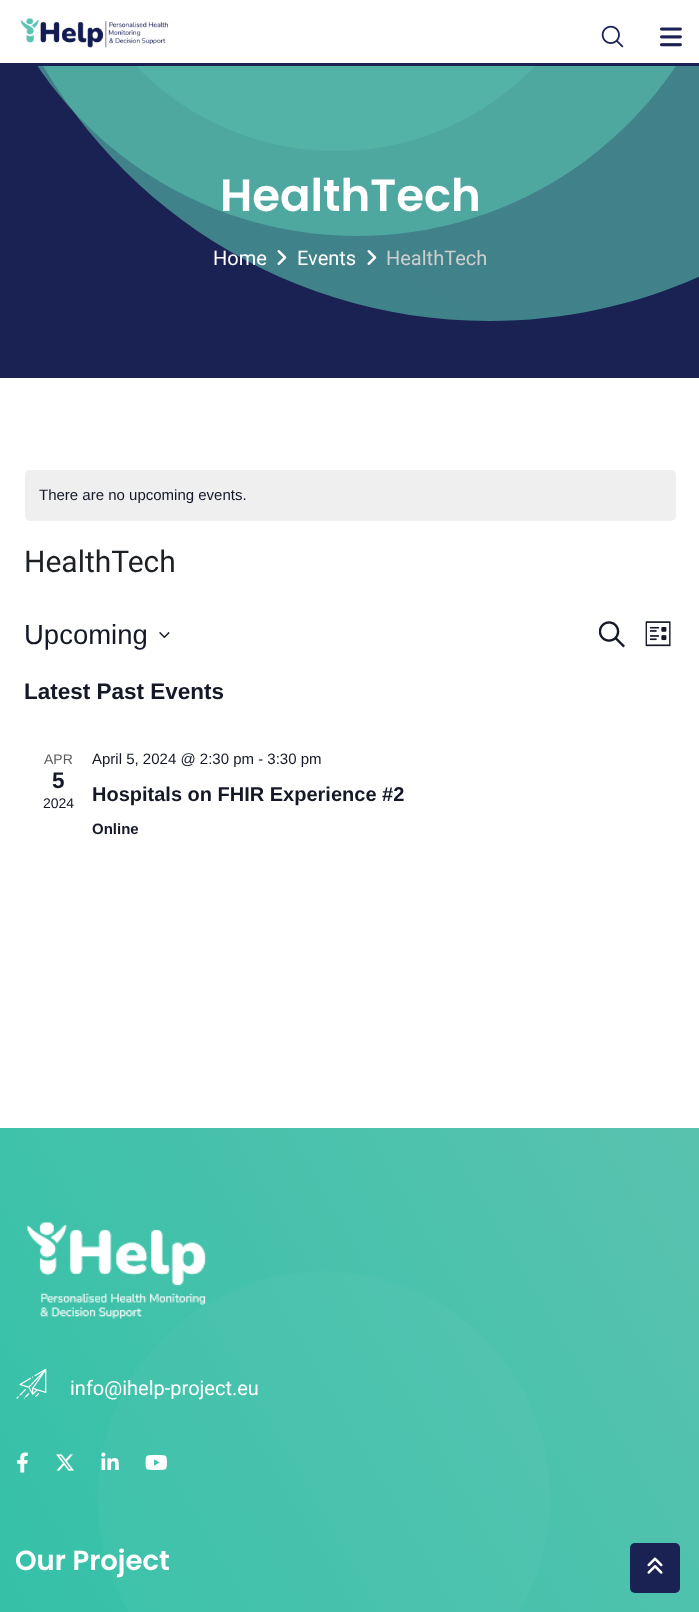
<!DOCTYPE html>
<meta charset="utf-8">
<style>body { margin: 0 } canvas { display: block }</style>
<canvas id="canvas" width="699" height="1612"></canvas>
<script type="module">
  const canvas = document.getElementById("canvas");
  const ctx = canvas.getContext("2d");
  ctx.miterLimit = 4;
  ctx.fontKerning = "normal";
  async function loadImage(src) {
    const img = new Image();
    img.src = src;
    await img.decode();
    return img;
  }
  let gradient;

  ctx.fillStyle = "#ffffff";
  ctx.fillRect(0, 0, 699, 1612);
  ctx.fillStyle = "#1a2253";
  ctx.fillRect(0, 66, 699, 312);
  gradient = ctx.createLinearGradient(-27, 183, 489, -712);
  gradient.addColorStop(0, "rgba(89, 194, 175, 0.6)");
  gradient.addColorStop(1, "rgba(96, 193, 176, 0.6)");
  ctx.fillStyle = gradient;
  ctx.beginPath();
  ctx.moveTo(489, -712);
  ctx.bezierCurveTo(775, -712, 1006, -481, 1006, -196);
  ctx.bezierCurveTo(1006, 90, 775, 321, 489, 321);
  ctx.bezierCurveTo(204, 321, -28, 90, -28, -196);
  ctx.bezierCurveTo(-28, -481, 204, -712, 489, -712);
  ctx.closePath();
  ctx.fill();
  ctx.fillStyle = "rgba(89, 194, 175, 0.6)";
  ctx.beginPath();
  ctx.moveTo(357, -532);
  ctx.bezierCurveTo(569, -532, 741, -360, 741, -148);
  ctx.bezierCurveTo(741, 64, 569, 236, 357, 236);
  ctx.bezierCurveTo(145, 236, -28, 64, -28, -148);
  ctx.bezierCurveTo(-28, -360, 145, -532, 357, -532);
  ctx.closePath();
  ctx.fill();
  ctx.fillStyle = "rgba(89, 194, 175, 0.4)";
  ctx.beginPath();
  ctx.moveTo(336, -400);
  ctx.bezierCurveTo(488, -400, 611, -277, 611, -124);
  ctx.bezierCurveTo(611, 28, 488, 151, 336, 151);
  ctx.bezierCurveTo(183, 151, 60, 28, 60, -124);
  ctx.bezierCurveTo(60, -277, 183, -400, 336, -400);
  ctx.closePath();
  ctx.fill();
  ctx.fillStyle = "#ffffff";
  ctx.fillRect(1, 0, 698, 63);
  ctx.fillStyle = "#1a2253";
  ctx.fillRect(0, 63, 699, 3);
  ctx.drawImage(await loadImage("img1.png"), 20, 18, 148, 30);
  ctx.drawImage(await loadImage("img2.png"), 601, 25, 23, 23);
  ctx.drawImage(await loadImage("img3.png"), 660, 27, 22, 20);
  ctx.font = "600 45px Poppins";
  ctx.fillStyle = "#ffffff";
  ctx.fillText("HealthTech", 220, 211);
  ctx.font = "20px Roboto";
  ctx.fillText("Home", 213, 265);
  ctx.drawImage(await loadImage("img4.png"), 277, 250, 10, 15);
  ctx.fillText("Events", 297, 265);
  ctx.drawImage(await loadImage("img4.png"), 367, 250, 10, 15);
  ctx.fillStyle = "#cecece";
  ctx.fillText("HealthTech", 386, 265);
  ctx.fillStyle = "#efeff0";
  ctx.beginPath();
  ctx.roundRect(25, 470, 651, 51, 5);
  ctx.fill();
  ctx.font = "15px Liberation Sans";
  ctx.fillStyle = "#141827";
  ctx.fillText("There are no upcoming events.", 39, 500);
  ctx.font = "30px Roboto";
  ctx.fillStyle = "#1d2124";
  ctx.fillText("HealthTech", 24, 572);
  ctx.font = "27.5px Liberation Sans";
  ctx.fillStyle = "#141827";
  ctx.fillText("Upcoming", 24, 644);
  ctx.drawImage(await loadImage("img5.png"), 159, 632, 11, 7);
  ctx.drawImage(await loadImage("img6.png"), 599, 621, 26, 27);
  ctx.drawImage(await loadImage("img7.png"), 645, 621, 26, 26);
  ctx.font = "bold 22.5px Liberation Sans";
  ctx.fillText("Latest Past Events", 24, 699);
  ctx.font = "14px Liberation Sans";
  ctx.fillStyle = "#5d5d5d";
  ctx.fillText("APR", 44, 764);
  ctx.font = "bold 22.5px Liberation Sans";
  ctx.fillStyle = "#141827";
  ctx.fillText("5", 52, 788);
  ctx.font = "14px Liberation Sans";
  ctx.fillText("2024", 43, 808);
  ctx.font = "15px Liberation Sans";
  ctx.fillText("April 5, 2024 @ 2:30 pm - 3:30 pm", 92, 764);
  ctx.font = "bold 20px Liberation Sans";
  ctx.fillText("Hospitals on FHIR Experience #2", 92, 801);
  ctx.font = "bold 15px Liberation Sans";
  ctx.fillText("Online", 92, 834);
  gradient = ctx.createLinearGradient(-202, 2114, 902, 1477);
  gradient.addColorStop(0, "#22c1a4");
  gradient.addColorStop(1, "#59c2af");
  ctx.fillStyle = gradient;
  ctx.fillRect(0, 1128, 699, 484);
  ctx.drawImage(await loadImage("img8.png"), 98, 1271, 452, 341);
  ctx.drawImage(await loadImage("img9.png"), 26, 1222, 180, 97);
  ctx.drawImage(await loadImage("img10.png"), 16, 1368, 31, 31);
  ctx.font = "20px Roboto";
  ctx.fillStyle = "#ffffff";
  ctx.fillText("info@ihelp-project.eu", 70, 1395);
  ctx.drawImage(await loadImage("img11.png"), 17, 1452, 11, 21);
  ctx.drawImage(await loadImage("img12.png"), 56, 1454, 18, 17);
  ctx.drawImage(await loadImage("img13.png"), 101, 1452, 18, 18);
  ctx.drawImage(await loadImage("img14.png"), 145, 1455, 22, 15);
  ctx.font = "600 27.5px Poppins";
  ctx.fillText("Our Project", 15, 1570);
  ctx.fillStyle = "#1a2253";
  ctx.beginPath();
  ctx.roundRect(630, 1543, 50, 50, 5);
  ctx.fill();
  ctx.drawImage(await loadImage("img15.png"), 647, 1557, 16, 17);
</script>
